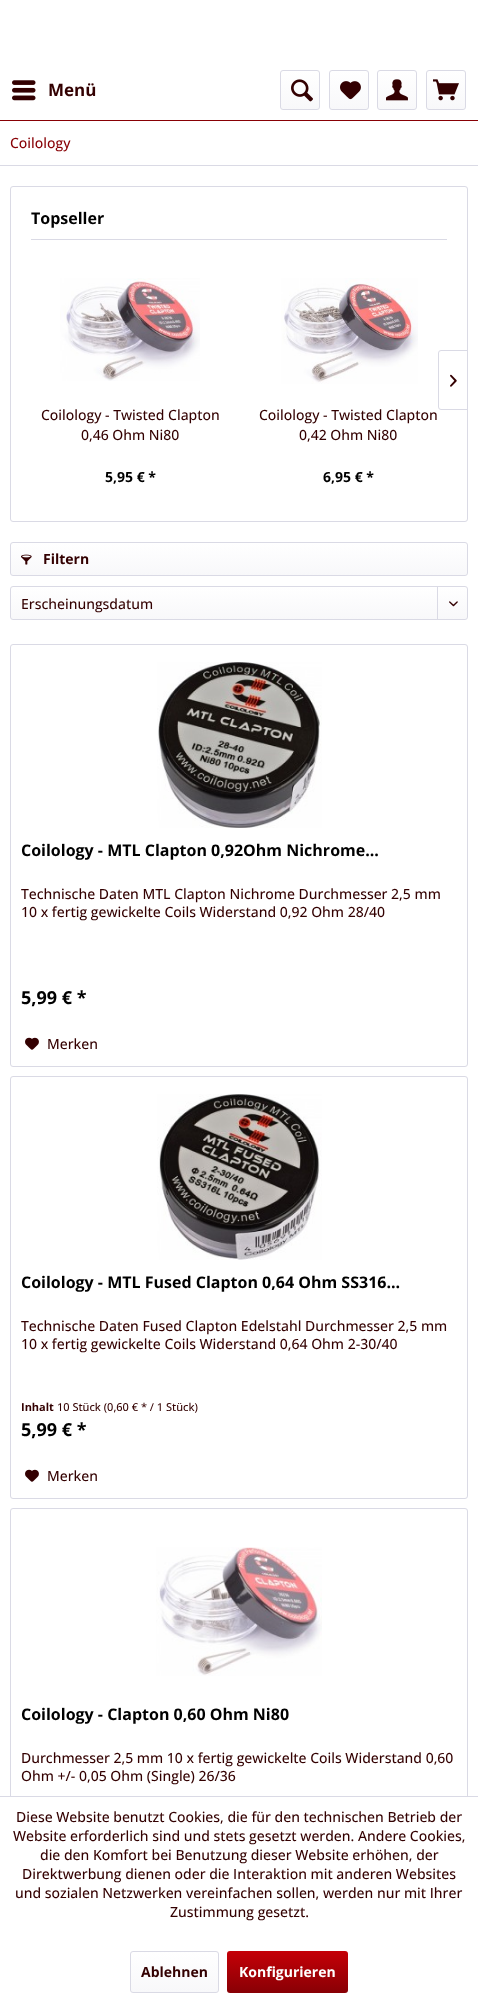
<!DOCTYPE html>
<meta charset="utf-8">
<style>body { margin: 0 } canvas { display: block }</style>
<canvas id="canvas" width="478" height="2003"></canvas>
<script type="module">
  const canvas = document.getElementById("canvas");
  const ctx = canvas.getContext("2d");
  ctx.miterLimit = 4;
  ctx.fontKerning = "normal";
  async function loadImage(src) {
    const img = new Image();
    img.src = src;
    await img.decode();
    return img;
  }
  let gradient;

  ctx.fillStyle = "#ffffff";
  ctx.fillRect(0, 0, 478, 2003);
  ctx.fillStyle = "#880005";
  ctx.fillRect(0, 120, 478, 1);
  ctx.drawImage(await loadImage("img1.png"), 12, 80, 24, 21);
  ctx.font = "bold 17px Open Sans";
  ctx.fillStyle = "#330001";
  ctx.fillText("Menü", 48, 96);
  gradient = ctx.createLinearGradient(300, 71, 300, 109);
  gradient.addColorStop(0, "#ffffff");
  gradient.addColorStop(1, "#f8f8fa");
  ctx.fillStyle = gradient;
  ctx.beginPath();
  ctx.roundRect(281, 71, 38, 38, 2);
  ctx.fill();
  ctx.beginPath();
  ctx.roundRect(280.5, 70.5, 39, 39, 2.5);
  ctx.strokeStyle = "#dadae5";
  ctx.stroke();
  ctx.drawImage(await loadImage("img2.png"), 291, 79, 22, 23);
  gradient = ctx.createLinearGradient(349, 71, 349, 109);
  gradient.addColorStop(0, "#ffffff");
  gradient.addColorStop(1, "#f8f8fa");
  ctx.fillStyle = gradient;
  ctx.beginPath();
  ctx.roundRect(330, 71, 38, 38, 2);
  ctx.fill();
  ctx.beginPath();
  ctx.roundRect(329.5, 70.5, 39, 39, 2.5);
  ctx.stroke();
  ctx.drawImage(await loadImage("img3.png"), 340, 81, 21, 19);
  gradient = ctx.createLinearGradient(397, 71, 397, 109);
  gradient.addColorStop(0, "#ffffff");
  gradient.addColorStop(1, "#f8f8fa");
  ctx.fillStyle = gradient;
  ctx.beginPath();
  ctx.roundRect(378, 71, 38, 38, 2);
  ctx.fill();
  ctx.beginPath();
  ctx.roundRect(377.5, 70.5, 39, 39, 2.5);
  ctx.stroke();
  ctx.drawImage(await loadImage("img4.png"), 386, 79, 22, 22);
  gradient = ctx.createLinearGradient(446, 71, 446, 109);
  gradient.addColorStop(0, "#ffffff");
  gradient.addColorStop(1, "#f8f8fa");
  ctx.fillStyle = gradient;
  ctx.beginPath();
  ctx.roundRect(427, 71, 38, 38, 2);
  ctx.fill();
  ctx.beginPath();
  ctx.roundRect(426.5, 70.5, 39, 39, 2.5);
  ctx.stroke();
  ctx.drawImage(await loadImage("img5.png"), 433, 79, 26, 22);
  ctx.fillStyle = "#dadae5";
  ctx.fillRect(0, 165, 478, 1);
  ctx.font = "500 14px Open Sans";
  ctx.fillStyle = "#880005";
  ctx.fillText("Coilology", 10, 148);
  ctx.beginPath();
  ctx.roundRect(10.5, 186.5, 457, 335, 2.5);
  ctx.stroke();
  ctx.fillStyle = "#dadae5";
  ctx.fillRect(31, 239, 416, 1);
  ctx.font = "bold 16px Open Sans";
  ctx.fillStyle = "#000000";
  ctx.fillText("Topseller", 31, 224);
  ctx.beginPath();
  ctx.roundRect(438.5, 350.5, 29, 59, [2.5, 0, 0, 2.5]);
  ctx.stroke();
  ctx.drawImage(await loadImage("img6.png"), 450, 374, 7, 13);
  ctx.drawImage(await loadImage("img7.png"), 60, 278, 140, 103);
  ctx.font = "500 14px Open Sans";
  ctx.fillStyle = "#330001";
  ctx.fillText("Coilology - Twisted Clapton", 41, 420);
  ctx.fillText("0,46 Ohm Ni80", 81, 440);
  ctx.font = "bold 14px Open Sans";
  ctx.fillStyle = "#000000";
  ctx.fillText("5,95 € *", 105, 482);
  ctx.drawImage(await loadImage("img8.png"), 281, 278, 137, 106);
  ctx.font = "500 14px Open Sans";
  ctx.fillStyle = "#330001";
  ctx.fillText("Coilology - Twisted Clapton", 259, 420);
  ctx.fillText("0,42 Ohm Ni80", 299, 440);
  ctx.font = "bold 14px Open Sans";
  ctx.fillStyle = "#000000";
  ctx.fillText("6,95 € *", 323, 482);
  gradient = ctx.createLinearGradient(239, 543, 239, 575);
  gradient.addColorStop(0, "#ffffff");
  gradient.addColorStop(1, "#f8f8fa");
  ctx.fillStyle = gradient;
  ctx.beginPath();
  ctx.roundRect(11, 543, 456, 32, 2);
  ctx.fill();
  ctx.beginPath();
  ctx.roundRect(10.5, 542.5, 457, 33, 2.5);
  ctx.stroke();
  ctx.drawImage(await loadImage("img9.png"), 21, 554, 11, 11);
  ctx.fillStyle = "#330001";
  ctx.fillText("Filtern", 43, 564);
  gradient = ctx.createLinearGradient(239, 587, 239, 619);
  gradient.addColorStop(0, "#ffffff");
  gradient.addColorStop(1, "#f8f8fa");
  ctx.fillStyle = gradient;
  ctx.beginPath();
  ctx.roundRect(11, 587, 456, 32, 2);
  ctx.fill();
  ctx.beginPath();
  ctx.roundRect(10.5, 586.5, 457, 33, 2.5);
  ctx.stroke();
  ctx.font = "500 14px Open Sans";
  ctx.fillStyle = "#330001";
  ctx.fillText("Erscheinungsdatum", 21, 609);
  ctx.fillStyle = "#dadae5";
  ctx.fillRect(437, 587, 1, 33);
  ctx.drawImage(await loadImage("img10.png"), 449, 601, 9, 6);
  ctx.beginPath();
  ctx.roundRect(10.5, 644.5, 457, 422, 2.5);
  ctx.stroke();
  ctx.drawImage(await loadImage("img11.png"), 157, 662, 165, 166);
  ctx.font = "bold 16px Open Sans";
  ctx.fillStyle = "#000000";
  ctx.fillText("Coilology - MTL Clapton 0,92Ohm Nichrome...", 21, 856);
  ctx.font = "500 14px Open Sans";
  ctx.fillStyle = "#330001";
  ctx.fillText("Technische Daten MTL Clapton Nichrome Durchmesser 2,5 mm", 21, 899);
  ctx.fillText("10 x fertig gewickelte Coils Widerstand 0,92 Ohm 28/40", 21, 917);
  ctx.font = "bold 18px Open Sans";
  ctx.fillStyle = "#000000";
  ctx.fillText("5,99 € *", 21, 1004);
  ctx.drawImage(await loadImage("img12.png"), 25, 1037, 14, 13);
  ctx.font = "500 14px Open Sans";
  ctx.fillStyle = "#330001";
  ctx.fillText("Merken", 47, 1049);
  ctx.beginPath();
  ctx.roundRect(10.5, 1076.5, 457, 422, 2.5);
  ctx.stroke();
  ctx.drawImage(await loadImage("img13.png"), 157, 1094, 165, 166);
  ctx.font = "bold 16px Open Sans";
  ctx.fillStyle = "#000000";
  ctx.fillText("Coilology - MTL Fused Clapton 0,64 Ohm SS316...", 21, 1288);
  ctx.font = "500 14px Open Sans";
  ctx.fillStyle = "#330001";
  ctx.fillText("Technische Daten Fused Clapton Edelstahl Durchmesser 2,5 mm", 21, 1331);
  ctx.fillText("10 x fertig gewickelte Coils Widerstand 0,64 Ohm 2-30/40", 21, 1349);
  ctx.font = "bold 11px Open Sans";
  ctx.fillText("Inhalt", 21, 1411);
  ctx.font = "500 11px Open Sans";
  ctx.fillText("10 Stück (0,60 € * / 1 Stück)", 57, 1411);
  ctx.font = "bold 18px Open Sans";
  ctx.fillStyle = "#000000";
  ctx.fillText("5,99 € *", 21, 1436);
  ctx.drawImage(await loadImage("img12.png"), 25, 1469, 14, 13);
  ctx.font = "500 14px Open Sans";
  ctx.fillStyle = "#330001";
  ctx.fillText("Merken", 47, 1481);
  ctx.beginPath();
  ctx.roundRect(10.5, 1508.5, 457, 422, 2.5);
  ctx.stroke();
  ctx.drawImage(await loadImage("img14.png"), 156, 1547, 166, 129);
  ctx.font = "bold 16px Open Sans";
  ctx.fillStyle = "#000000";
  ctx.fillText("Coilology - Clapton 0,60 Ohm Ni80", 21, 1720);
  ctx.font = "500 14px Open Sans";
  ctx.fillStyle = "#330001";
  ctx.fillText("Durchmesser 2,5 mm 10 x fertig gewickelte Coils Widerstand 0,60", 21, 1763);
  ctx.fillText("Ohm +/- 0,05 Ohm (Single) 26/36", 21, 1781);
  ctx.fillStyle = "#ffffff";
  ctx.fillRect(10, 1797, 458, 134);
  ctx.fillStyle = "#dadae5";
  ctx.fillRect(0, 1796, 478, 1);
  ctx.fillStyle = "#330001";
  ctx.fillText("Diese Website benutzt Cookies, die für den technischen Betrieb der", 16, 1822);
  ctx.fillText("Website erforderlich sind und stets gesetzt werden. Andere Cookies,", 13, 1841);
  ctx.fillText("die den Komfort bei Benutzung dieser Website erhöhen, der", 40, 1860);
  ctx.fillText("Direktwerbung dienen oder die Interaktion mit anderen Websites", 22, 1879);
  ctx.fillText("und sozialen Netzwerken vereinfachen sollen, werden nur mit Ihrer", 15, 1898);
  ctx.fillText("Zustimmung gesetzt.", 170, 1917);
  gradient = ctx.createLinearGradient(175, 1952, 175, 1992);
  gradient.addColorStop(0, "#ffffff");
  gradient.addColorStop(1, "#f8f8fa");
  ctx.fillStyle = gradient;
  ctx.beginPath();
  ctx.roundRect(131, 1952, 87, 40, 2);
  ctx.fill();
  ctx.beginPath();
  ctx.roundRect(130.5, 1951.5, 88, 41, 2.5);
  ctx.stroke();
  ctx.font = "bold 14px Open Sans";
  ctx.fillStyle = "#330001";
  ctx.fillText("Ablehnen", 141, 1977);
  gradient = ctx.createLinearGradient(288, 1951, 288, 1993);
  gradient.addColorStop(0, "#c50007");
  gradient.addColorStop(1, "#880005");
  ctx.fillStyle = gradient;
  ctx.beginPath();
  ctx.roundRect(227, 1951, 121, 42, 3);
  ctx.fill();
  ctx.fillStyle = "#ffffff";
  ctx.fillText("Konfigurieren", 239, 1977);
</script>
